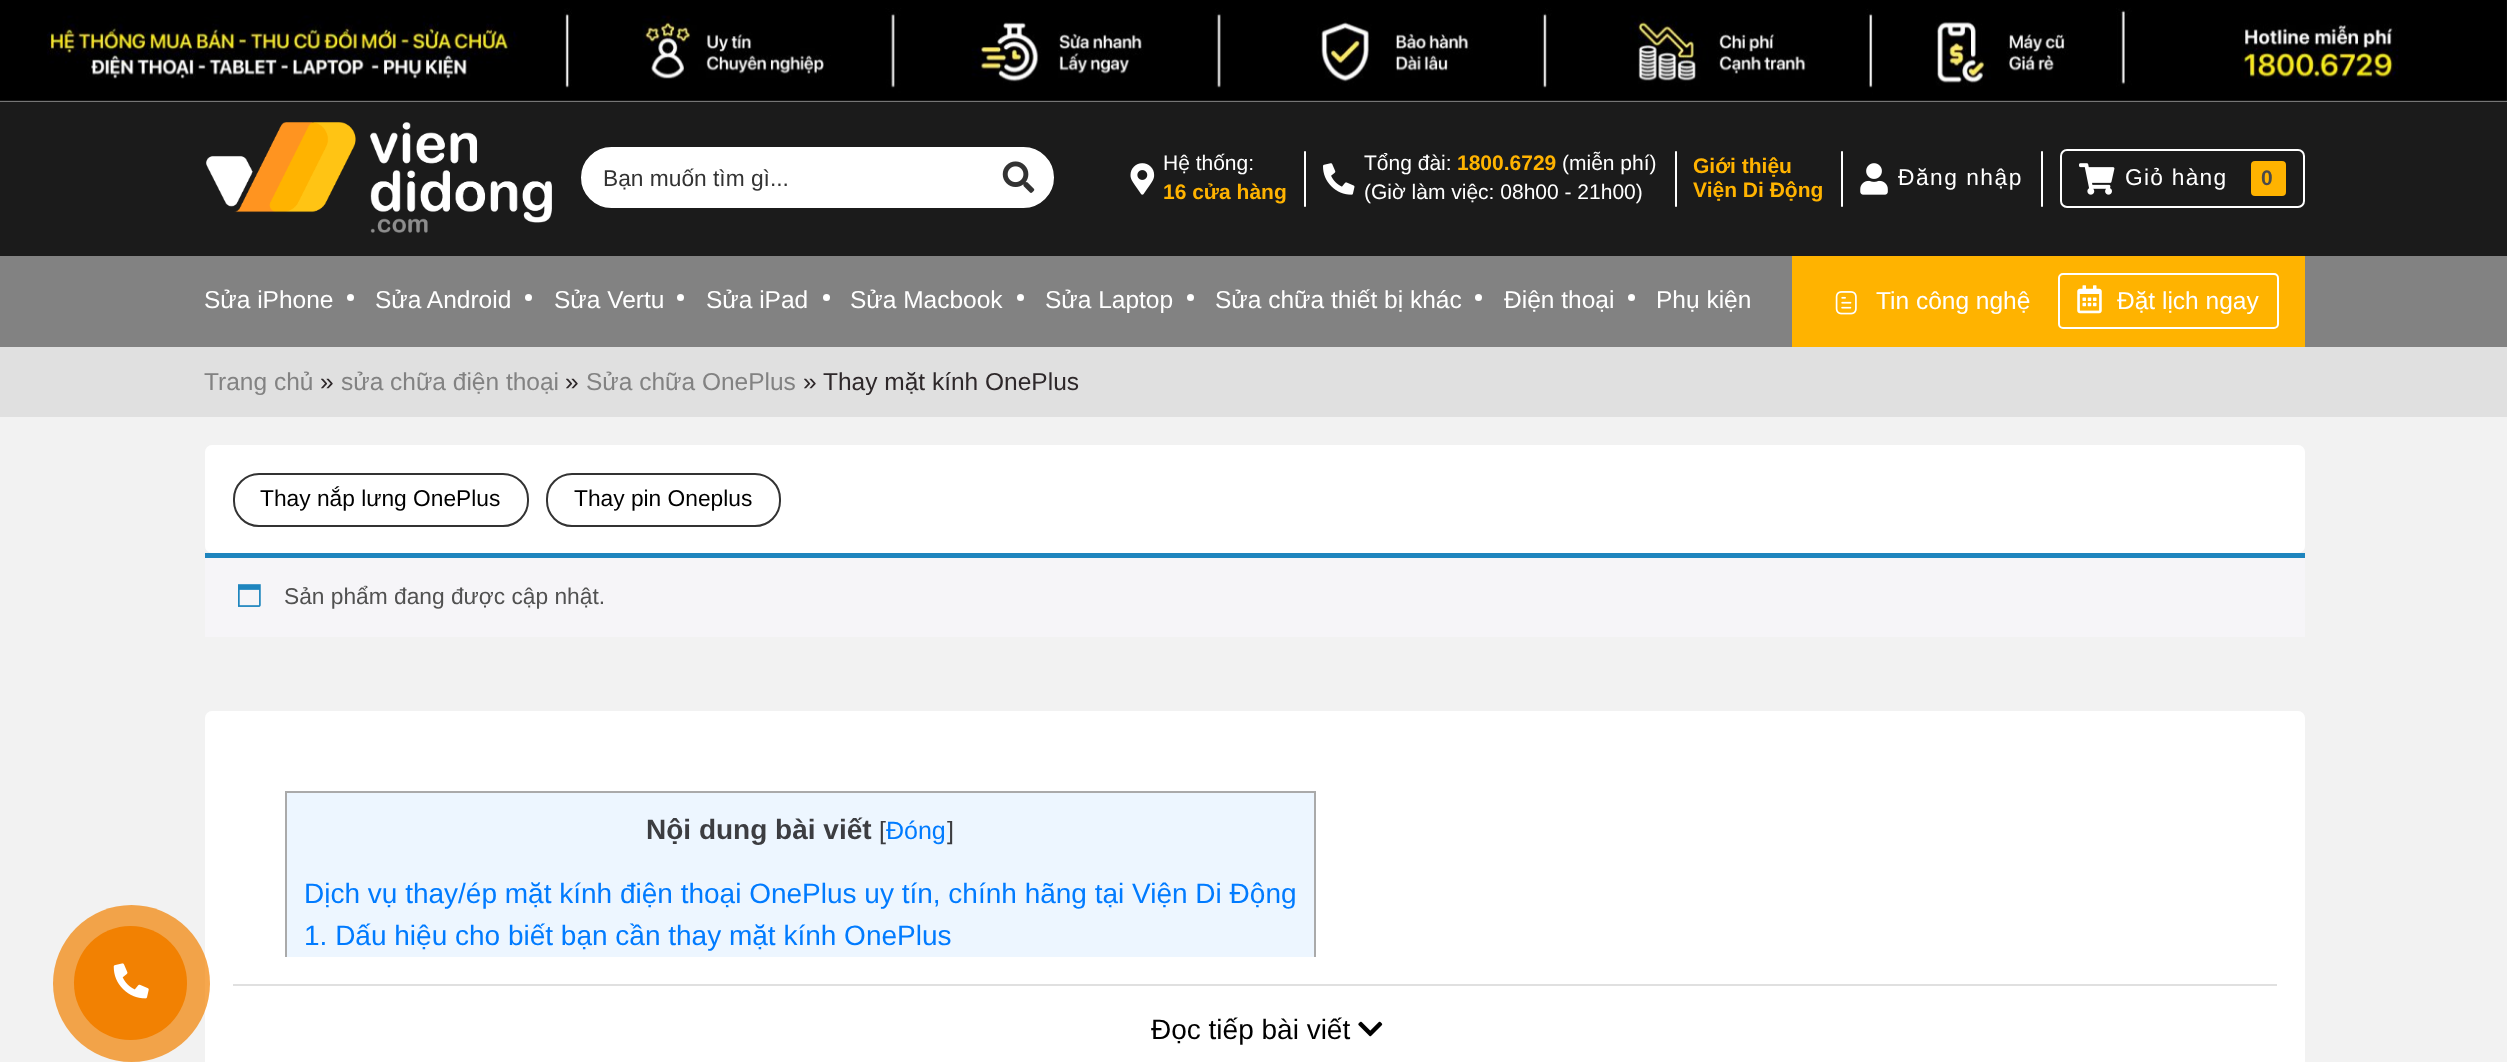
<!DOCTYPE html>
<meta charset="utf-8">
<style>body { margin: 0 } canvas { display: block }</style>
<canvas id="canvas" width="2507" height="1062"></canvas>
<script type="module">
  const canvas = document.getElementById("canvas");
  const ctx = canvas.getContext("2d");
  ctx.miterLimit = 4;
  ctx.fontKerning = "normal";
  async function loadImage(src) {
    const img = new Image();
    img.src = src;
    await img.decode();
    return img;
  }

  ctx.fillStyle = "#f2f2f2";
  ctx.fillRect(0, 0, 2507, 1062);
  ctx.drawImage(await loadImage("img1.png"), 0, 0, 2507, 102);
  ctx.fillStyle = "#ffffff";
  ctx.beginPath();
  ctx.roundRect(205, 711, 2100, 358, 7);
  ctx.fill();
  ctx.fillStyle = "rgba(242, 129, 2, 0.7)";
  ctx.beginPath();
  ctx.arc(131.5, 983.5, 78.5, 0, Math.PI * 2);
  ctx.fill();
  ctx.fillStyle = "#f28102";
  ctx.beginPath();
  ctx.roundRect(74, 926, 113, 114, 56.5);
  ctx.fill();
  ctx.drawImage(await loadImage("img2.png"), 113, 963, 36, 36);
  ctx.fillStyle = "#1b1b1b";
  ctx.fillRect(0, 102, 2507, 154);
  ctx.drawImage(await loadImage("img3.png"), 206, 122, 346, 111);
  ctx.fillStyle = "#ffffff";
  ctx.beginPath();
  ctx.roundRect(582, 148, 471, 59, 29.5);
  ctx.fill();
  ctx.strokeStyle = "#ffffff";
  ctx.lineWidth = 2;
  ctx.stroke();
  ctx.font = "22.75px Liberation Sans";
  ctx.fillStyle = "#333333";
  ctx.fillText("Bạn muốn tìm gì...", 603, 186);
  ctx.drawImage(await loadImage("img4.png"), 1002, 161, 33, 32);
  ctx.drawImage(await loadImage("img5.png"), 1130, 163, 25, 32);
  ctx.font = "21px Liberation Sans";
  ctx.fillStyle = "#ffffff";
  ctx.fillText("Hệ thống:", 1163, 170);
  ctx.font = "bold 21px Liberation Sans";
  ctx.fillStyle = "#ffb300";
  ctx.fillText("16 cửa hàng", 1163, 199);
  ctx.fillStyle = "#ffffff";
  ctx.beginPath();
  ctx.roundRect(1304, 151, 2, 56, 1);
  ctx.fill();
  ctx.drawImage(await loadImage("img6.png"), 1323, 163, 32, 32);
  ctx.font = "21px Liberation Sans";
  ctx.fillText("Tổng đài:", 1364, 170);
  ctx.font = "bold 21px Liberation Sans";
  ctx.fillStyle = "#ffb300";
  ctx.fillText("1800.6729", 1457, 170);
  ctx.font = "21px Liberation Sans";
  ctx.fillStyle = "#ffffff";
  ctx.fillText("(miễn phí)", 1562, 170);
  ctx.fillText("(Giờ làm việc: 08h00 - 21h00)", 1364, 199);
  ctx.beginPath();
  ctx.roundRect(1675, 151, 2, 56, 1);
  ctx.fill();
  ctx.font = "bold 21px Liberation Sans";
  ctx.fillStyle = "#ffb300";
  ctx.fillText("Giới thiệu", 1693, 173);
  ctx.fillText("Viện Di Động", 1693, 197);
  ctx.fillStyle = "#ffffff";
  ctx.beginPath();
  ctx.roundRect(1841, 151, 2, 56, 1);
  ctx.fill();
  ctx.drawImage(await loadImage("img7.png"), 1860, 163, 28, 32);
  ctx.letterSpacing = "1.5px";
  ctx.font = "22.75px Liberation Sans";
  ctx.fillText("Đăng nhập", 1898, 185);
  ctx.beginPath();
  ctx.roundRect(2041, 151, 2, 56, 1);
  ctx.fill();
  ctx.beginPath();
  ctx.roundRect(2061, 150, 243, 57, 6);
  ctx.stroke();
  ctx.drawImage(await loadImage("img8.png"), 2079, 163, 36, 32);
  ctx.letterSpacing = "1.25px";
  ctx.fillText("Giỏ hàng", 2125, 185);
  ctx.fillStyle = "#ffb300";
  ctx.beginPath();
  ctx.roundRect(2251, 161, 35, 35, 4);
  ctx.fill();
  ctx.font = "bold 21px Liberation Sans";
  ctx.fillStyle = "#4a4a4a";
  ctx.fillText("0", 2261, 185);
  ctx.fillStyle = "#828282";
  ctx.fillRect(0, 256, 2507, 91);
  ctx.letterSpacing = "0px";
  ctx.font = "24.5px Liberation Sans";
  ctx.fillStyle = "#ffffff";
  ctx.fillText("Sửa iPhone", 204, 308);
  ctx.beginPath();
  ctx.arc(350.5, 297.5, 3.5, 0, Math.PI * 2);
  ctx.fill();
  ctx.fillText("Sửa Android", 375, 308);
  ctx.beginPath();
  ctx.arc(528.5, 297.5, 3.5, 0, Math.PI * 2);
  ctx.fill();
  ctx.fillText("Sửa Vertu", 554, 308);
  ctx.beginPath();
  ctx.arc(680.5, 297.5, 3.5, 0, Math.PI * 2);
  ctx.fill();
  ctx.fillText("Sửa iPad", 706, 308);
  ctx.beginPath();
  ctx.arc(826.5, 297.5, 3.5, 0, Math.PI * 2);
  ctx.fill();
  ctx.fillText("Sửa Macbook", 850, 308);
  ctx.beginPath();
  ctx.arc(1020.5, 297.5, 3.5, 0, Math.PI * 2);
  ctx.fill();
  ctx.fillText("Sửa Laptop", 1045, 308);
  ctx.beginPath();
  ctx.arc(1190.5, 297.5, 3.5, 0, Math.PI * 2);
  ctx.fill();
  ctx.fillText("Sửa chữa thiết bị khác", 1215, 308);
  ctx.beginPath();
  ctx.arc(1478.5, 297.5, 3.5, 0, Math.PI * 2);
  ctx.fill();
  ctx.fillText("Điện thoại", 1504, 308);
  ctx.beginPath();
  ctx.arc(1631.5, 297.5, 3.5, 0, Math.PI * 2);
  ctx.fill();
  ctx.fillText("Phụ kiện", 1656, 308);
  ctx.fillStyle = "#ffb300";
  ctx.fillRect(1792, 256, 513, 91);
  ctx.drawImage(await loadImage("img9.png"), 1835, 291, 22, 24);
  ctx.fillStyle = "#ffffff";
  ctx.fillText("Tin công nghệ", 1876, 309);
  ctx.beginPath();
  ctx.roundRect(2059, 274, 219, 54, 4);
  ctx.stroke();
  ctx.drawImage(await loadImage("img10.png"), 2077, 285, 25, 29);
  ctx.fillText("Đặt lịch ngay", 2117, 309);
  ctx.fillStyle = "#e0e0e0";
  ctx.fillRect(0, 347, 2507, 70);
  ctx.fillStyle = "#828282";
  ctx.fillText("Trang chủ", 204, 390);
  ctx.fillStyle = "#2e282a";
  ctx.fillText("»", 320, 390);
  ctx.fillStyle = "#828282";
  ctx.fillText("sửa chữa điện thoại", 341, 390);
  ctx.fillStyle = "#2e282a";
  ctx.fillText("»", 565, 390);
  ctx.fillStyle = "#828282";
  ctx.fillText("Sửa chữa OnePlus", 586, 390);
  ctx.fillStyle = "#2e282a";
  ctx.fillText("»", 803, 390);
  ctx.fillText("Thay mặt kính OnePlus", 823, 390);
  ctx.fillStyle = "#ffffff";
  ctx.beginPath();
  ctx.roundRect(205, 445, 2100, 108, 7);
  ctx.fill();
  ctx.beginPath();
  ctx.roundRect(234, 474, 294, 52, 25);
  ctx.strokeStyle = "#333333";
  ctx.stroke();
  ctx.font = "22.75px Liberation Sans";
  ctx.fillStyle = "#000000";
  ctx.fillText("Thay nắp lưng OnePlus", 260, 506);
  ctx.beginPath();
  ctx.roundRect(547, 474, 233, 52, 25);
  ctx.stroke();
  ctx.fillText("Thay pin Oneplus", 574, 506);
  ctx.fillStyle = "#f6f5f8";
  ctx.fillRect(205, 558, 2100, 79);
  ctx.fillStyle = "#1e85be";
  ctx.fillRect(205, 553, 2100, 5);
  ctx.drawImage(await loadImage("img11.png"), 238, 584, 23, 23);
  ctx.fillStyle = "#515151";
  ctx.fillText("Sản phẩm đang được cập nhật.", 284, 604);
  ctx.fillStyle = "#edf6ff";
  ctx.fillRect(287, 793, 1027, 164);
  ctx.fillStyle = "#aaaaaa";
  ctx.beginPath();
  ctx.moveTo(285, 791);
  ctx.lineTo(285, 957);
  ctx.lineTo(287, 957);
  ctx.lineTo(287, 793);
  ctx.lineTo(1314, 793);
  ctx.lineTo(1314, 957);
  ctx.lineTo(1316, 957);
  ctx.lineTo(1316, 791);
  ctx.closePath();
  ctx.fill();
  ctx.font = "bold 28px Liberation Sans";
  ctx.fillStyle = "#3c3d41";
  ctx.fillText("Nội dung bài viết", 646, 839);
  ctx.font = "25px Liberation Sans";
  ctx.fillText("[", 879, 839);
  ctx.fillStyle = "#007bff";
  ctx.fillText("Đóng", 886, 839);
  ctx.fillStyle = "#3c3d41";
  ctx.fillText("]", 947, 839);
  ctx.font = "28px Liberation Sans";
  ctx.fillStyle = "#007bff";
  ctx.fillText("Dịch vụ thay/ép mặt kính điện thoại OnePlus uy tín, chính hãng tại Viện Di Động", 304, 903);
  ctx.fillText("1. Dấu hiệu cho biết bạn cần thay mặt kính OnePlus", 304, 945);
  ctx.fillStyle = "#e0e0e0";
  ctx.fillRect(233, 984, 2044, 2);
  ctx.fillStyle = "#000000";
  ctx.fillText("Đọc tiếp bài viết", 1151, 1039);
  ctx.drawImage(await loadImage("img12.png"), 1358, 1021, 25, 16);
</script>
